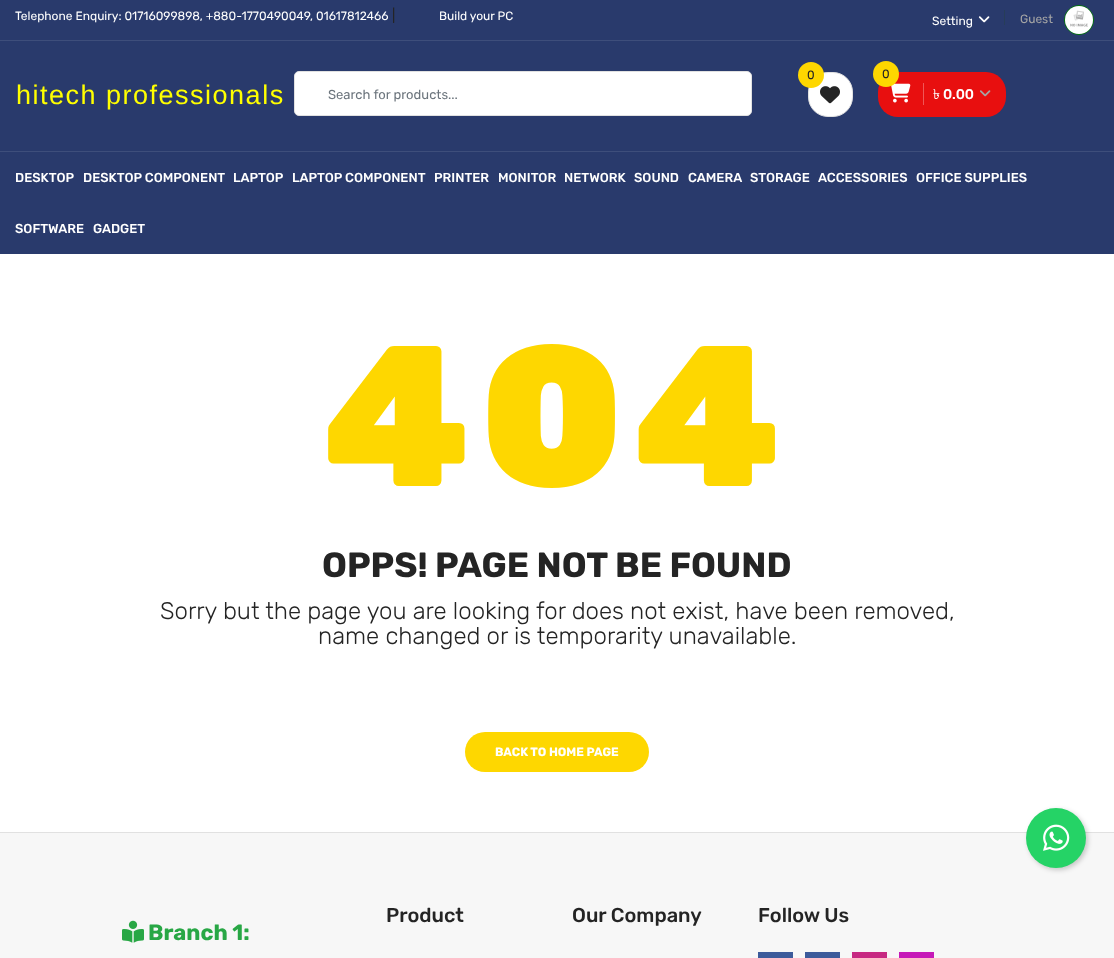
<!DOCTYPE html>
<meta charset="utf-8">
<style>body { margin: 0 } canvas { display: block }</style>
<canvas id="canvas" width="1114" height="958"></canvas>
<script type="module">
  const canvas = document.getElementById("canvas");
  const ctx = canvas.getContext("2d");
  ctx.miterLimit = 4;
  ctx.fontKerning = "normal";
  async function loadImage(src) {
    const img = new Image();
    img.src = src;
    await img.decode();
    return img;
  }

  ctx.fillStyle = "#ffffff";
  ctx.fillRect(0, 0, 1114, 958);
  ctx.fillStyle = "#293a6c";
  ctx.fillRect(0, 0, 1114, 254);
  ctx.fillStyle = "#3e4e7b";
  ctx.fillRect(0, 40, 1114, 1);
  ctx.font = "12px Rubik";
  ctx.fillStyle = "#ffffff";
  ctx.fillText("Telephone Enquiry: 01716099898, +880-1770490049, 01617812466", 15, 20);
  ctx.font = "14px Rubik";
  ctx.fillStyle = "#242424";
  ctx.fillText("|", 392, 20);
  ctx.font = "12px Rubik";
  ctx.fillStyle = "#ffffff";
  ctx.fillText("Build your PC", 439, 20);
  ctx.fillText("Setting", 932, 25);
  ctx.drawImage(await loadImage("img1.png"), 978, 16, 12, 7);
  ctx.fillStyle = "#273d58";
  ctx.fillRect(1004, 10, 1, 15);
  ctx.fillStyle = "#a5a5a5";
  ctx.fillText("Guest", 1020, 23);
  ctx.beginPath();
  ctx.arc(1079, 20, 14.5, 0, Math.PI * 2);
  ctx.strokeStyle = "#008000";
  ctx.stroke();
  ctx.drawImage(await loadImage("img2.png"), 1065, 6, 28, 28);
  ctx.letterSpacing = "1.5px";
  ctx.font = "27px Liberation Sans";
  ctx.fillStyle = "#ffff00";
  ctx.fillText("hitech professionals", 16, 104);
  ctx.fillStyle = "#ffffff";
  ctx.beginPath();
  ctx.roundRect(294.5, 71.5, 457, 44, 4.5);
  ctx.fill();
  ctx.strokeStyle = "#e1e1e1";
  ctx.stroke();
  ctx.letterSpacing = "0px";
  ctx.font = "13px Rubik";
  ctx.fillStyle = "#6c757d";
  ctx.fillText("Search for products...", 328, 99);
  ctx.fillStyle = "#ffffff";
  ctx.beginPath();
  ctx.roundRect(808.5, 72.5, 44, 44, 19.5);
  ctx.fill();
  ctx.stroke();
  ctx.drawImage(await loadImage("img3.png"), 820, 86, 20, 18);
  ctx.fillStyle = "#fed700";
  ctx.beginPath();
  ctx.arc(811, 75, 13, 0, Math.PI * 2);
  ctx.fill();
  ctx.font = "12px Rubik";
  ctx.fillStyle = "#242424";
  ctx.fillText("0", 807, 79);
  ctx.fillStyle = "#e80f0f";
  ctx.beginPath();
  ctx.roundRect(878, 72, 128, 45, 20);
  ctx.fill();
  ctx.drawImage(await loadImage("img5.png"), 891, 83, 20, 20);
  ctx.fillStyle = "#fed700";
  ctx.beginPath();
  ctx.arc(886, 74, 13, 0, Math.PI * 2);
  ctx.fill();
  ctx.fillStyle = "#242424";
  ctx.fillText("0", 882, 78);
  ctx.fillStyle = "#ef5757";
  ctx.fillRect(923, 83, 1, 22);
  ctx.font = "14px Lohit Bengali";
  ctx.fillStyle = "#ffffff";
  ctx.fillText("৳", 933, 99);
  ctx.font = "500 14px Rubik";
  ctx.fillText("0.00", 943, 99);
  ctx.drawImage(await loadImage("img4.png"), 979, 90, 12, 7);
  ctx.fillStyle = "#3e4e7b";
  ctx.fillRect(0, 151, 1114, 1);
  ctx.font = "500 13px Rubik";
  ctx.fillStyle = "#ffffff";
  ctx.fillText("DESKTOP", 15, 182);
  ctx.fillText("DESKTOP COMPONENT", 83, 182);
  ctx.fillText("LAPTOP", 233, 182);
  ctx.fillText("LAPTOP COMPONENT", 292, 182);
  ctx.fillText("PRINTER", 434, 182);
  ctx.fillText("MONITOR", 498, 182);
  ctx.fillText("NETWORK", 564, 182);
  ctx.fillText("SOUND", 634, 182);
  ctx.fillText("CAMERA", 688, 182);
  ctx.fillText("STORAGE", 750, 182);
  ctx.fillText("ACCESSORIES", 818, 182);
  ctx.fillText("OFFICE SUPPLIES", 916, 182);
  ctx.fillText("SOFTWARE", 15, 233);
  ctx.fillText("GADGET", 93, 233);
  ctx.letterSpacing = "10px";
  ctx.font = "900 200px Rubik";
  ctx.fillStyle = "#fed700";
  ctx.fillText("404", 323, 486);
  ctx.letterSpacing = "0px";
  ctx.font = "bold 35px Rubik";
  ctx.fillStyle = "#242424";
  ctx.fillText("OPPS! PAGE NOT BE FOUND", 322, 577);
  ctx.font = "300 24px Rubik";
  ctx.fillText("Sorry but the page you are looking for does not exist, have been removed,", 160, 619);
  ctx.fillText("name changed or is temporarity unavailable.", 318, 644);
  ctx.fillStyle = "#fed700";
  ctx.beginPath();
  ctx.roundRect(465, 732, 184, 40, 20);
  ctx.fill();
  ctx.font = "bold 12px Rubik";
  ctx.fillStyle = "#ffffff";
  ctx.fillText("BACK TO HOME PAGE", 495, 756);
  ctx.fillStyle = "#f7f7f7";
  ctx.fillRect(0, 833, 1114, 125);
  ctx.fillStyle = "#e1e1e1";
  ctx.fillRect(0, 832, 1114, 1);
  ctx.font = "500 20px Rubik";
  ctx.fillStyle = "#242424";
  ctx.fillText("Product", 386, 922);
  ctx.fillText("Our Company", 572, 922);
  ctx.fillText("Follow Us", 758, 922);
  ctx.fillStyle = "#3c5b9b";
  ctx.fillRect(758, 952, 35, 6);
  ctx.fillRect(805, 952, 35, 6);
  ctx.fillStyle = "#c72982";
  ctx.fillRect(852, 952, 35, 6);
  ctx.fillStyle = "#c619b8";
  ctx.fillRect(899, 952, 35, 6);
  ctx.drawImage(await loadImage("img6.png"), 122, 920, 22, 23);
  ctx.font = "bold 22px Rubik";
  ctx.fillStyle = "#28a745";
  ctx.fillText("Branch 1:", 148, 940);
  ctx.fillStyle = "rgba(0, 0, 0, 0.2)";
  ctx.filter = "blur(2.5px)";
  ctx.beginPath();
  ctx.roundRect(1028, 810, 60, 60, 30);
  ctx.fill();
  ctx.filter = "none";
  ctx.fillStyle = "#25d366";
  ctx.beginPath();
  ctx.arc(1056, 838, 30, 0, Math.PI * 2);
  ctx.fill();
  ctx.drawImage(await loadImage("img7.png"), 1043, 824, 27, 27);
</script>
